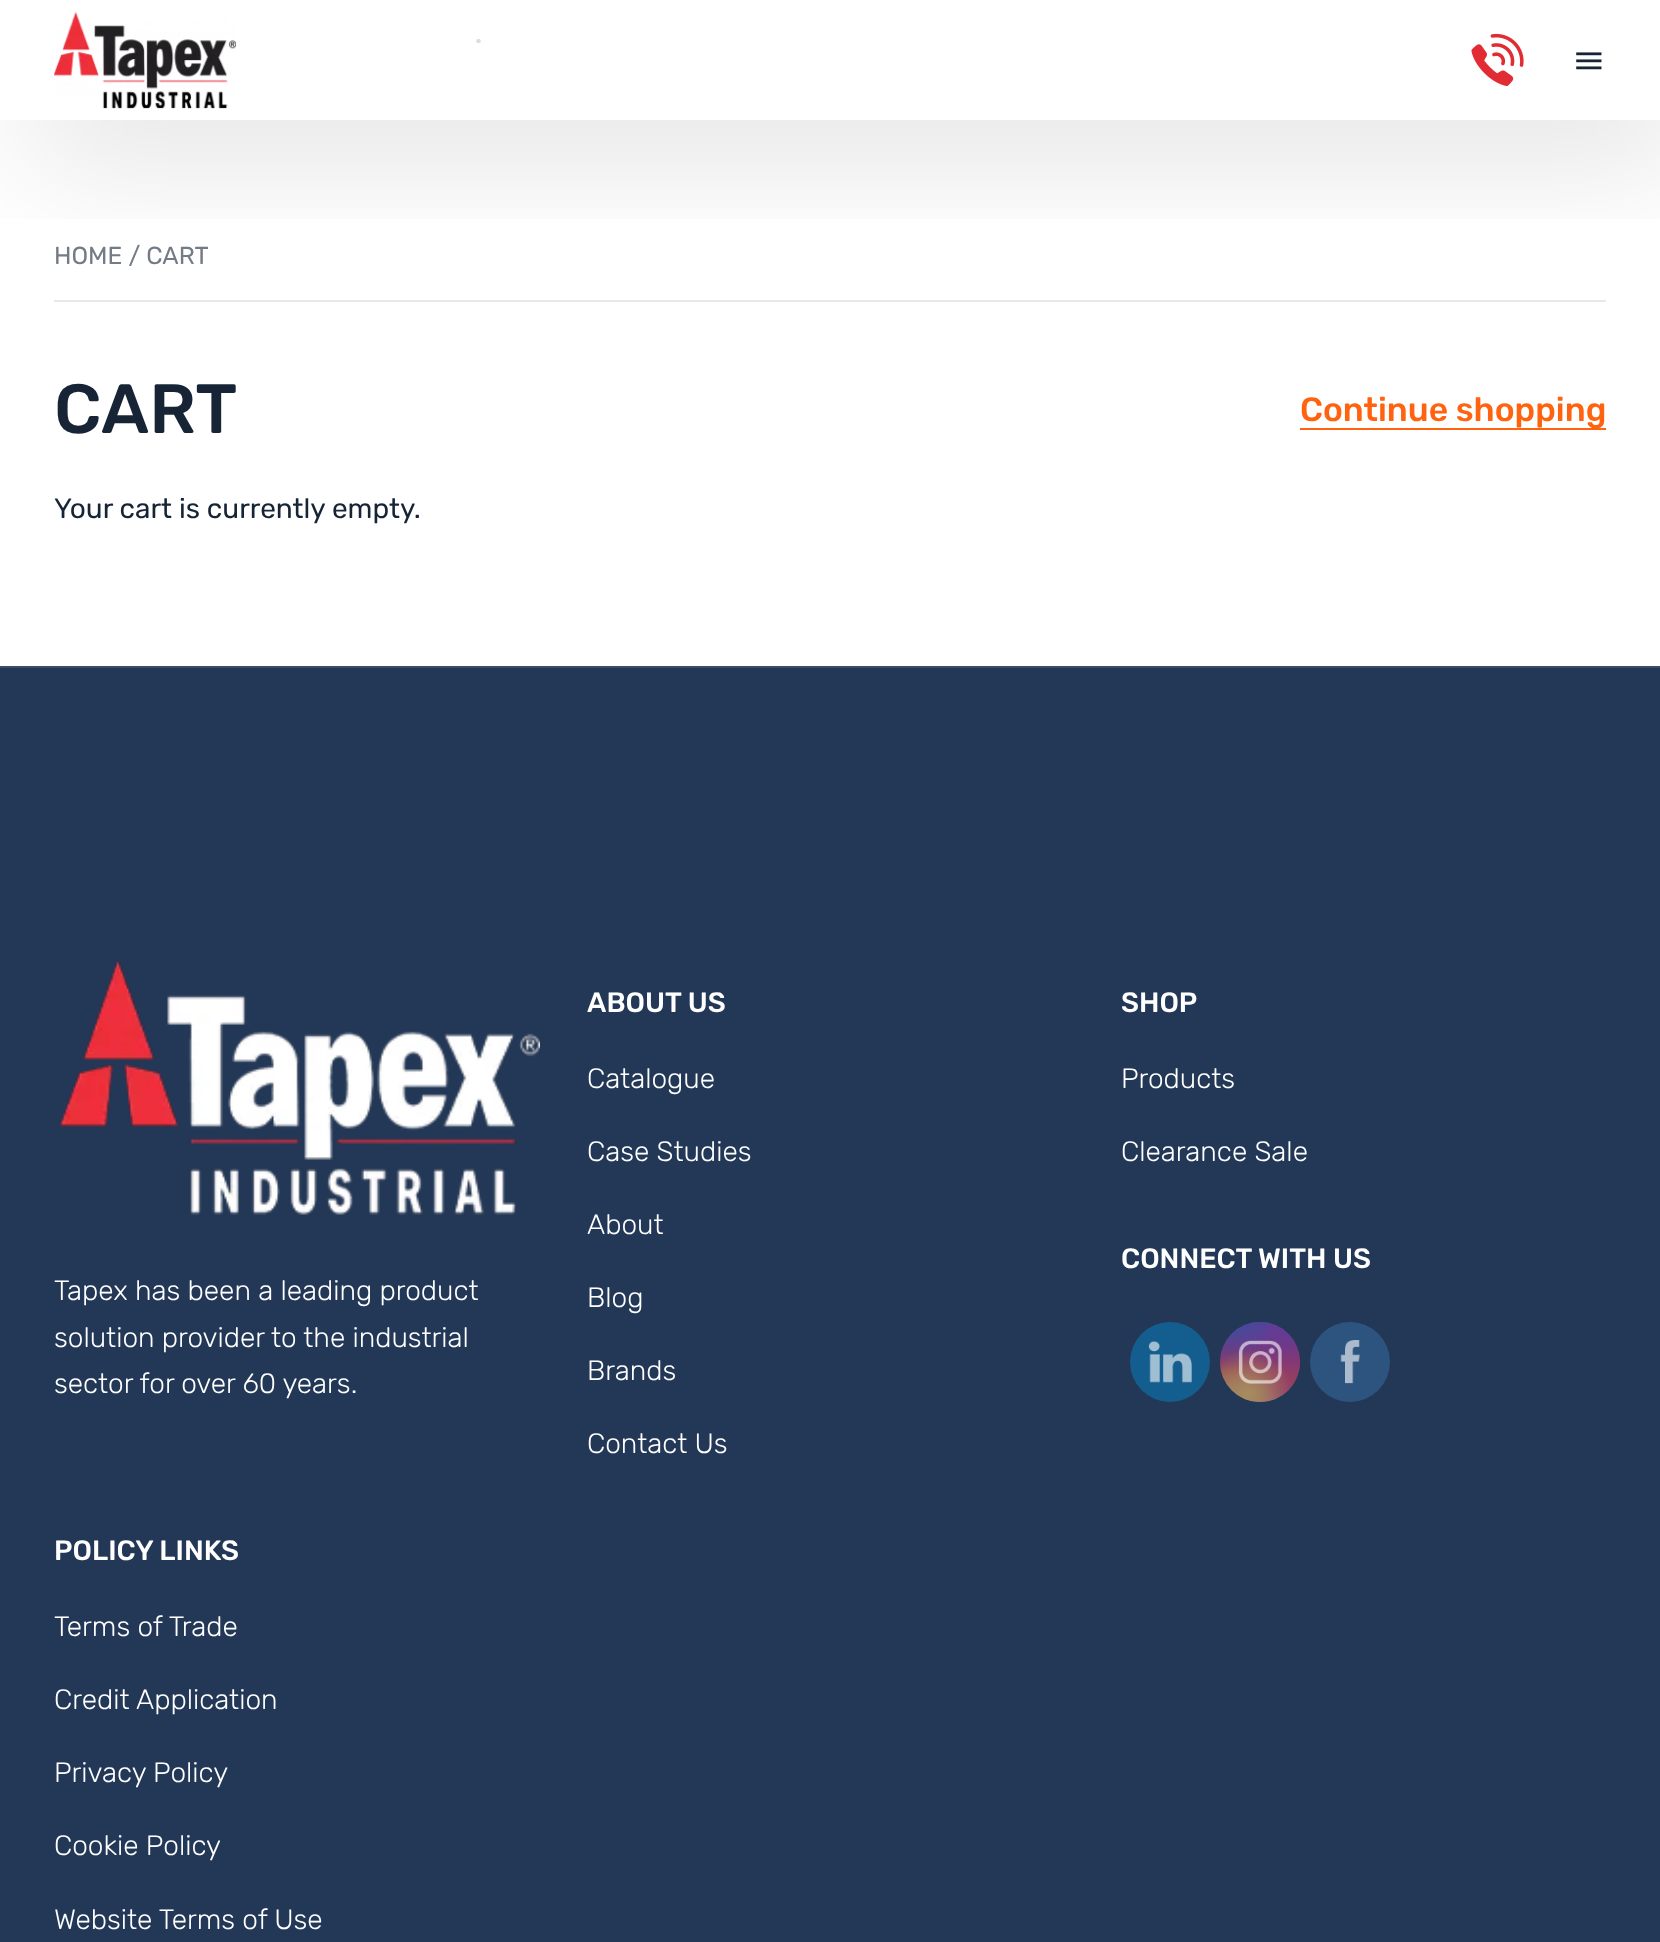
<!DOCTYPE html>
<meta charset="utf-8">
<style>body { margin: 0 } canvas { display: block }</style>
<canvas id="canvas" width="1660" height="1942"></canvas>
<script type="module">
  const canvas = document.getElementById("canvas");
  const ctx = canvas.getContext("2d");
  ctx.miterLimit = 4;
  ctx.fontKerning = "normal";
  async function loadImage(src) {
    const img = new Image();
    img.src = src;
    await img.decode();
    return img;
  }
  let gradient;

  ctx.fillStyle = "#ffffff";
  ctx.fillRect(0, 0, 1660, 1942);
  ctx.fillStyle = "#e8e9eb";
  ctx.fillRect(54, 300, 1552, 2);
  ctx.save();
  ctx.beginPath();
  ctx.rect(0, 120, 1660, 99);
  ctx.clip();
  ctx.fillStyle = "rgba(0, 0, 0, 0.12)";
  ctx.filter = "blur(70px)";
  ctx.beginPath();
  ctx.rect(28, 28, 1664, 124);
  ctx.fill();
  ctx.filter = "none";
  ctx.restore();
  ctx.drawImage(await loadImage("img1.png"), 54, 12, 183, 97);
  ctx.beginPath();
  ctx.moveTo(478, 41);
  ctx.lineTo(479, 41);
  ctx.strokeStyle = "#dddddd";
  ctx.lineWidth = 3.8;
  ctx.lineCap = "round";
  ctx.stroke();
  ctx.drawImage(await loadImage("img2.png"), 1471, 33, 53, 53);
  ctx.drawImage(await loadImage("img3.png"), 1576, 52, 26, 18);
  ctx.font = "24.5px Rubik";
  ctx.fillStyle = "#737c86";
  ctx.fillText("HOME / CART", 54, 264);
  ctx.font = "500 69.5px Rubik";
  ctx.fillStyle = "#162436";
  ctx.fillText("CART", 54, 433);
  ctx.fillStyle = "#ff630f";
  ctx.fillRect(1300, 428, 306, 2);
  ctx.font = "500 33.6px Rubik";
  ctx.fillText("Continue shopping", 1300, 421);
  ctx.font = "28px Rubik";
  ctx.fillStyle = "#162436";
  ctx.fillText("Your cart is currently empty.", 54, 518);
  ctx.fillStyle = "#233857";
  ctx.fillRect(0, 668, 1660, 1274);
  ctx.fillStyle = "#394c68";
  ctx.fillRect(0, 666, 1660, 2);
  ctx.font = "500 28px Rubik";
  ctx.fillStyle = "#ffffff";
  ctx.fillText("ABOUT US", 587, 1012);
  ctx.font = "300 28px Rubik";
  ctx.fillText("Catalogue", 587, 1088);
  ctx.fillText("Case Studies", 587, 1161);
  ctx.fillText("About", 587, 1234);
  ctx.fillText("Blog", 587, 1307);
  ctx.fillText("Brands", 587, 1380);
  ctx.fillText("Contact Us", 587, 1453);
  ctx.font = "500 28px Rubik";
  ctx.fillText("SHOP", 1121, 1012);
  ctx.font = "300 28px Rubik";
  ctx.fillText("Products", 1121, 1088);
  ctx.fillText("Clearance Sale", 1121, 1161);
  ctx.font = "500 28px Rubik";
  ctx.fillText("CONNECT WITH US", 1121, 1268);
  ctx.fillStyle = "#135e8f";
  ctx.beginPath();
  ctx.arc(1170, 1362, 40, 0, Math.PI * 2);
  ctx.fill();
  ctx.drawImage(await loadImage("img4.png"), 1148, 1341, 44, 42);
  gradient = ctx.createLinearGradient(1260, 1322, 1260, 1402);
  gradient.addColorStop(0, "#4b4c9c");
  gradient.addColorStop(0.3, "#7f3479");
  gradient.addColorStop(0.5, "#963c5c");
  gradient.addColorStop(0.7, "#a25d44");
  gradient.addColorStop(1, "#a68d64");
  ctx.fillStyle = gradient;
  ctx.beginPath();
  ctx.arc(1260, 1362, 40, 0, Math.PI * 2);
  ctx.fill();
  gradient = ctx.createRadialGradient(1300, 1402, 0, 1300, 1402, 113);
  gradient.addColorStop(0, "#90346c");
  gradient.addColorStop(1, "rgba(144, 52, 108, 0)");
  ctx.fillStyle = gradient;
  ctx.beginPath();
  ctx.arc(1260, 1362, 40, 0, Math.PI * 2);
  ctx.fill();
  gradient = ctx.createRadialGradient(1268, 653, 0, 1268, 653, 68);
  gradient.addColorStop(0, "#603b97");
  gradient.addColorStop(0.5, "rgba(96, 59, 151, 0)");
  ctx.fillStyle = gradient;
  ctx.beginPath();
  ctx.arc(1260, 1362, 40, 0, Math.PI * 2);
  ctx.save();
  ctx.clip();
  ctx.scale(1, 136 / 68);
  ctx.fillRect(0, 0, 1660, 971);
  ctx.restore();
  gradient = ctx.createRadialGradient(1300, 1322, 0, 1300, 1322, 113);
  gradient.addColorStop(0, "#603b97");
  gradient.addColorStop(0.5, "rgba(96, 59, 151, 0)");
  ctx.fillStyle = gradient;
  ctx.beginPath();
  ctx.arc(1260, 1362, 40, 0, Math.PI * 2);
  ctx.fill();
  gradient = ctx.createRadialGradient(1236, 686.25, 0, 1236, 686.25, 91);
  gradient.addColorStop(0, "#3f4b9f");
  gradient.addColorStop(0.5, "rgba(63, 75, 159, 0)");
  ctx.fillStyle = gradient;
  ctx.beginPath();
  ctx.arc(1260, 1362, 40, 0, Math.PI * 2);
  ctx.save();
  ctx.clip();
  ctx.scale(1, 170 / 91);
  ctx.fillRect(0, 0, 1660, 1040);
  ctx.restore();
  gradient = ctx.createRadialGradient(1220, 1043.45, 0, 1220, 1043.45, 113);
  gradient.addColorStop(0, "#3f4b9f");
  gradient.addColorStop(0.5, "rgba(63, 75, 159, 0)");
  ctx.fillStyle = gradient;
  ctx.beginPath();
  ctx.arc(1260, 1362, 40, 0, Math.PI * 2);
  ctx.save();
  ctx.clip();
  ctx.scale(1, 141 / 113);
  ctx.fillRect(0, 0, 1660, 1557);
  ctx.restore();
  gradient = ctx.createRadialGradient(1220, 1434, 0, 1220, 1434, 138);
  gradient.addColorStop(0, "#a68d5f");
  gradient.addColorStop(0.5, "rgba(166, 141, 95, 0)");
  ctx.fillStyle = gradient;
  ctx.beginPath();
  ctx.arc(1260, 1362, 40, 0, Math.PI * 2);
  ctx.fill();
  gradient = ctx.createRadialGradient(1248, 1394, 0, 1248, 1394, 89);
  gradient.addColorStop(0, "#a68d5f");
  gradient.addColorStop(0.5, "rgba(166, 141, 95, 0)");
  ctx.fillStyle = gradient;
  ctx.beginPath();
  ctx.arc(1260, 1362, 40, 0, Math.PI * 2);
  ctx.fill();
  ctx.drawImage(await loadImage("img5.png"), 1238, 1340, 44, 44);
  ctx.fillStyle = "#2d547f";
  ctx.beginPath();
  ctx.arc(1350, 1362, 40, 0, Math.PI * 2);
  ctx.fill();
  ctx.drawImage(await loadImage("img6.png"), 1340, 1340, 20, 44);
  ctx.drawImage(await loadImage("img7.png"), 59, 960, 481, 255);
  ctx.font = "300 28px Rubik";
  ctx.fillStyle = "#ffffff";
  ctx.fillText("Tapex has been a leading product", 54, 1300);
  ctx.fillText("solution provider to the industrial", 54, 1347);
  ctx.fillText("sector for over 60 years.", 54, 1393);
  ctx.font = "500 28px Rubik";
  ctx.fillText("POLICY LINKS", 54, 1560);
  ctx.font = "300 28px Rubik";
  ctx.fillText("Terms of Trade", 54, 1636);
  ctx.fillText("Credit Application", 54, 1709);
  ctx.fillText("Privacy Policy", 54, 1782);
  ctx.fillText("Cookie Policy", 54, 1855);
  ctx.fillText("Website Terms of Use", 54, 1929);
</script>
